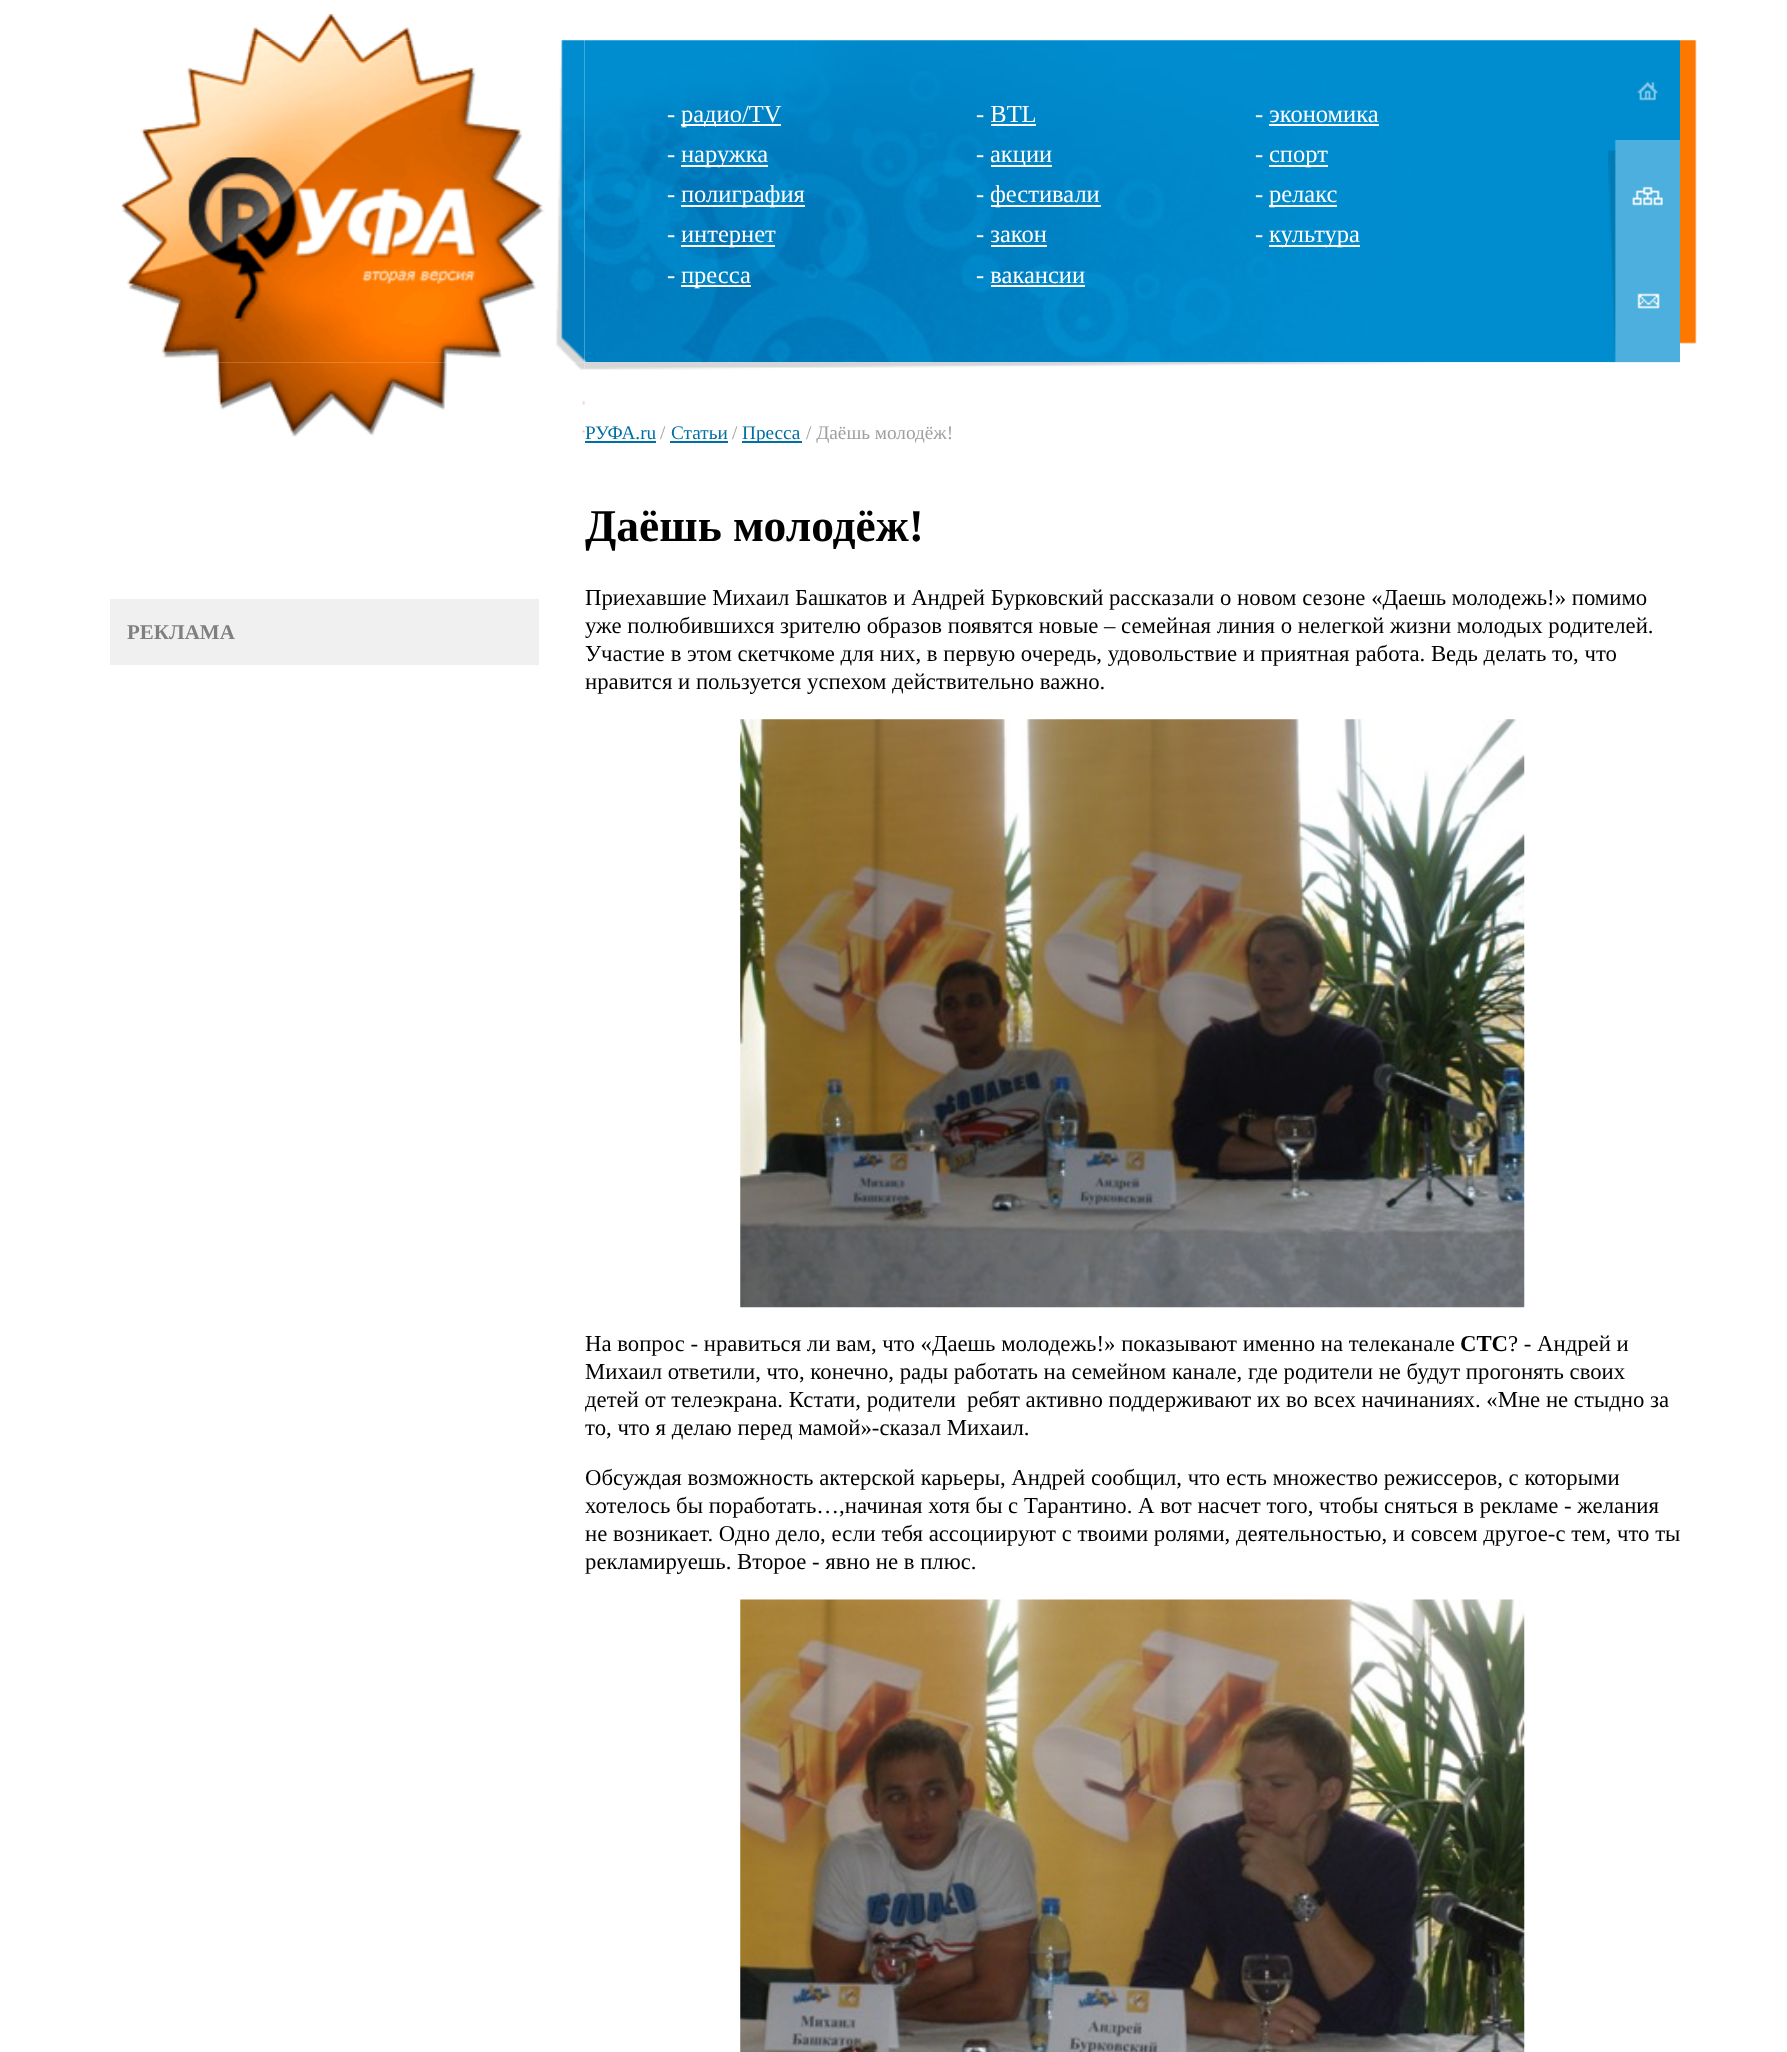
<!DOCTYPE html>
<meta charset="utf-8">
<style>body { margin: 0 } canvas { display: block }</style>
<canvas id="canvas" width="1787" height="2052"></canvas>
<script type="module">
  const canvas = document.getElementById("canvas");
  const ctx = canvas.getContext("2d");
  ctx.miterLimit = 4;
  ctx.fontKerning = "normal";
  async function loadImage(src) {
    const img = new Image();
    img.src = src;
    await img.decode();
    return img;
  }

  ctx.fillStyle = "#ffffff";
  ctx.fillRect(0, 0, 1787, 2052);
  ctx.drawImage(await loadImage("img3.png"), 584, 40, 1096, 323);
  ctx.drawImage(await loadImage("img1.png"), 250, 14, 335, 27);
  ctx.drawImage(await loadImage("img2.png"), 120, 40, 465, 323);
  ctx.font = "24.5px Liberation Serif";
  ctx.fillText("-", 667, 122);
  ctx.fillRect(681, 124, 100, 2);
  ctx.fillText("радио/TV", 681, 122);
  ctx.fillText("-", 667, 162);
  ctx.fillRect(681, 165, 87, 2);
  ctx.fillText("наружка", 681, 162);
  ctx.fillText("-", 667, 202);
  ctx.fillRect(681, 205, 124, 2);
  ctx.fillText("полиграфия", 681, 202);
  ctx.fillText("-", 667, 242);
  ctx.fillRect(681, 245, 94, 2);
  ctx.fillText("интернет", 681, 242);
  ctx.fillText("-", 667, 283);
  ctx.fillRect(681, 285, 70, 2);
  ctx.fillText("пресса", 681, 283);
  ctx.fillText("- BTL", 976, 122);
  ctx.fillRect(991, 124, 45, 2);
  ctx.fillText("-", 976, 162);
  ctx.fillRect(991, 165, 61, 2);
  ctx.fillText("акции", 990, 162);
  ctx.fillText("-", 976, 202);
  ctx.fillRect(991, 205, 110, 2);
  ctx.fillText("фестивали", 990, 202);
  ctx.fillText("- закон", 976, 242);
  ctx.fillRect(991, 245, 56, 2);
  ctx.fillText("- вакансии", 976, 283);
  ctx.fillRect(991, 285, 94, 2);
  ctx.fillText("- экономика", 1255, 122);
  ctx.fillRect(1269, 124, 110, 2);
  ctx.fillText("-", 1255, 162);
  ctx.fillRect(1269, 165, 59, 2);
  ctx.fillText("спорт", 1269, 162);
  ctx.fillText("-", 1255, 202);
  ctx.fillRect(1269, 205, 68, 2);
  ctx.fillText("релакс", 1269, 202);
  ctx.fillText("-", 1255, 242);
  ctx.fillRect(1269, 245, 91, 2);
  ctx.fillText("культура", 1269, 242);
  ctx.drawImage(await loadImage("img4.png"), 1608, 81, 72, 59);
  ctx.drawImage(await loadImage("img5.png"), 1608, 140, 72, 112);
  ctx.drawImage(await loadImage("img6.png"), 1608, 252, 72, 111);
  ctx.drawImage(await loadImage("img7.png"), 1680, 40, 17, 304);
  ctx.drawImage(await loadImage("img8.png"), 216, 362, 369, 75);
  ctx.fillStyle = "#f0f0f0";
  ctx.fillRect(110, 599, 429, 66);
  ctx.font = "bold 21px Liberation Serif";
  ctx.fillStyle = "#808080";
  ctx.fillText("РЕКЛАМА", 127, 639);
  ctx.drawImage(await loadImage("img9.png"), 584, 362, 1096, 8);
  ctx.font = "19.25px Liberation Serif";
  ctx.fillStyle = "#006fa4";
  ctx.fillText("РУФА.ru", 585, 439);
  ctx.fillRect(585, 441, 71, 2);
  ctx.fillStyle = "#a0a0a0";
  ctx.fillText("/", 660, 439);
  ctx.fillStyle = "#006fa4";
  ctx.fillText("Статьи", 671, 439);
  ctx.fillRect(670, 441, 58, 2);
  ctx.fillStyle = "#a0a0a0";
  ctx.fillText("/", 732, 439);
  ctx.fillStyle = "#006fa4";
  ctx.fillRect(742, 441, 60, 2);
  ctx.fillText("Пресса", 742, 439);
  ctx.fillStyle = "#a0a0a0";
  ctx.fillText("/ Даёшь молодёж!", 806, 439);
  ctx.font = "bold 45.5px Liberation Serif";
  ctx.fillStyle = "#000000";
  ctx.fillText("Даёшь молодёж!", 585, 541);
  ctx.font = "22.75px Liberation Serif";
  ctx.fillText("Приехавшие Михаил Башкатов и Андрей Бурковский рассказали о новом сезоне «Даешь молодежь!» помимо", 585, 605);
  ctx.fillText("уже полюбившихся зрителю образов появятся новые – семейная линия о нелегкой жизни молодых родителей.", 585, 633);
  ctx.fillText("Участие в этом скетчкоме для них, в первую очередь, удовольствие и приятная работа. Ведь делать то, что", 585, 661);
  ctx.fillText("нравится и пользуется успехом действительно важно.", 585, 689);
  ctx.drawImage(await loadImage("img10.png"), 740, 719, 785, 589);
  ctx.fillText("На вопрос - нравиться ли вам, что «Даешь молодежь!» показывают именно на телеканале", 585, 1351);
  ctx.font = "bold 22.75px Liberation Serif";
  ctx.fillText("СТС", 1460, 1351);
  ctx.font = "22.75px Liberation Serif";
  ctx.fillText("? - Андрей и", 1508, 1351);
  ctx.fillText("Михаил ответили, что, конечно, рады работать на семейном канале, где родители не будут прогонять своих", 585, 1379);
  ctx.fillText("детей от телеэкрана. Кстати, родители", 585, 1407);
  ctx.fillText("ребят активно поддерживают их во всех начинаниях. «Мне не стыдно за", 967, 1407);
  ctx.fillText("то, что я делаю перед мамой»-сказал Михаил.", 585, 1435);
  ctx.fillText("Обсуждая возможность актерской карьеры, Андрей сообщил, что есть множество режиссеров, с которыми", 585, 1485);
  ctx.fillText("хотелось бы поработать…,начиная хотя бы с Тарантино. А вот насчет того, чтобы сняться в рекламе - желания", 585, 1513);
  ctx.fillText("не возникает. Одно дело, если тебя ассоциируют с твоими ролями, деятельностью, и совсем другое-с тем, что ты", 585, 1541);
  ctx.fillText("рекламируешь. Второе - явно не в плюс.", 585, 1569);
  ctx.drawImage(await loadImage("img11.png"), 740, 1599, 785, 453);
</script>
